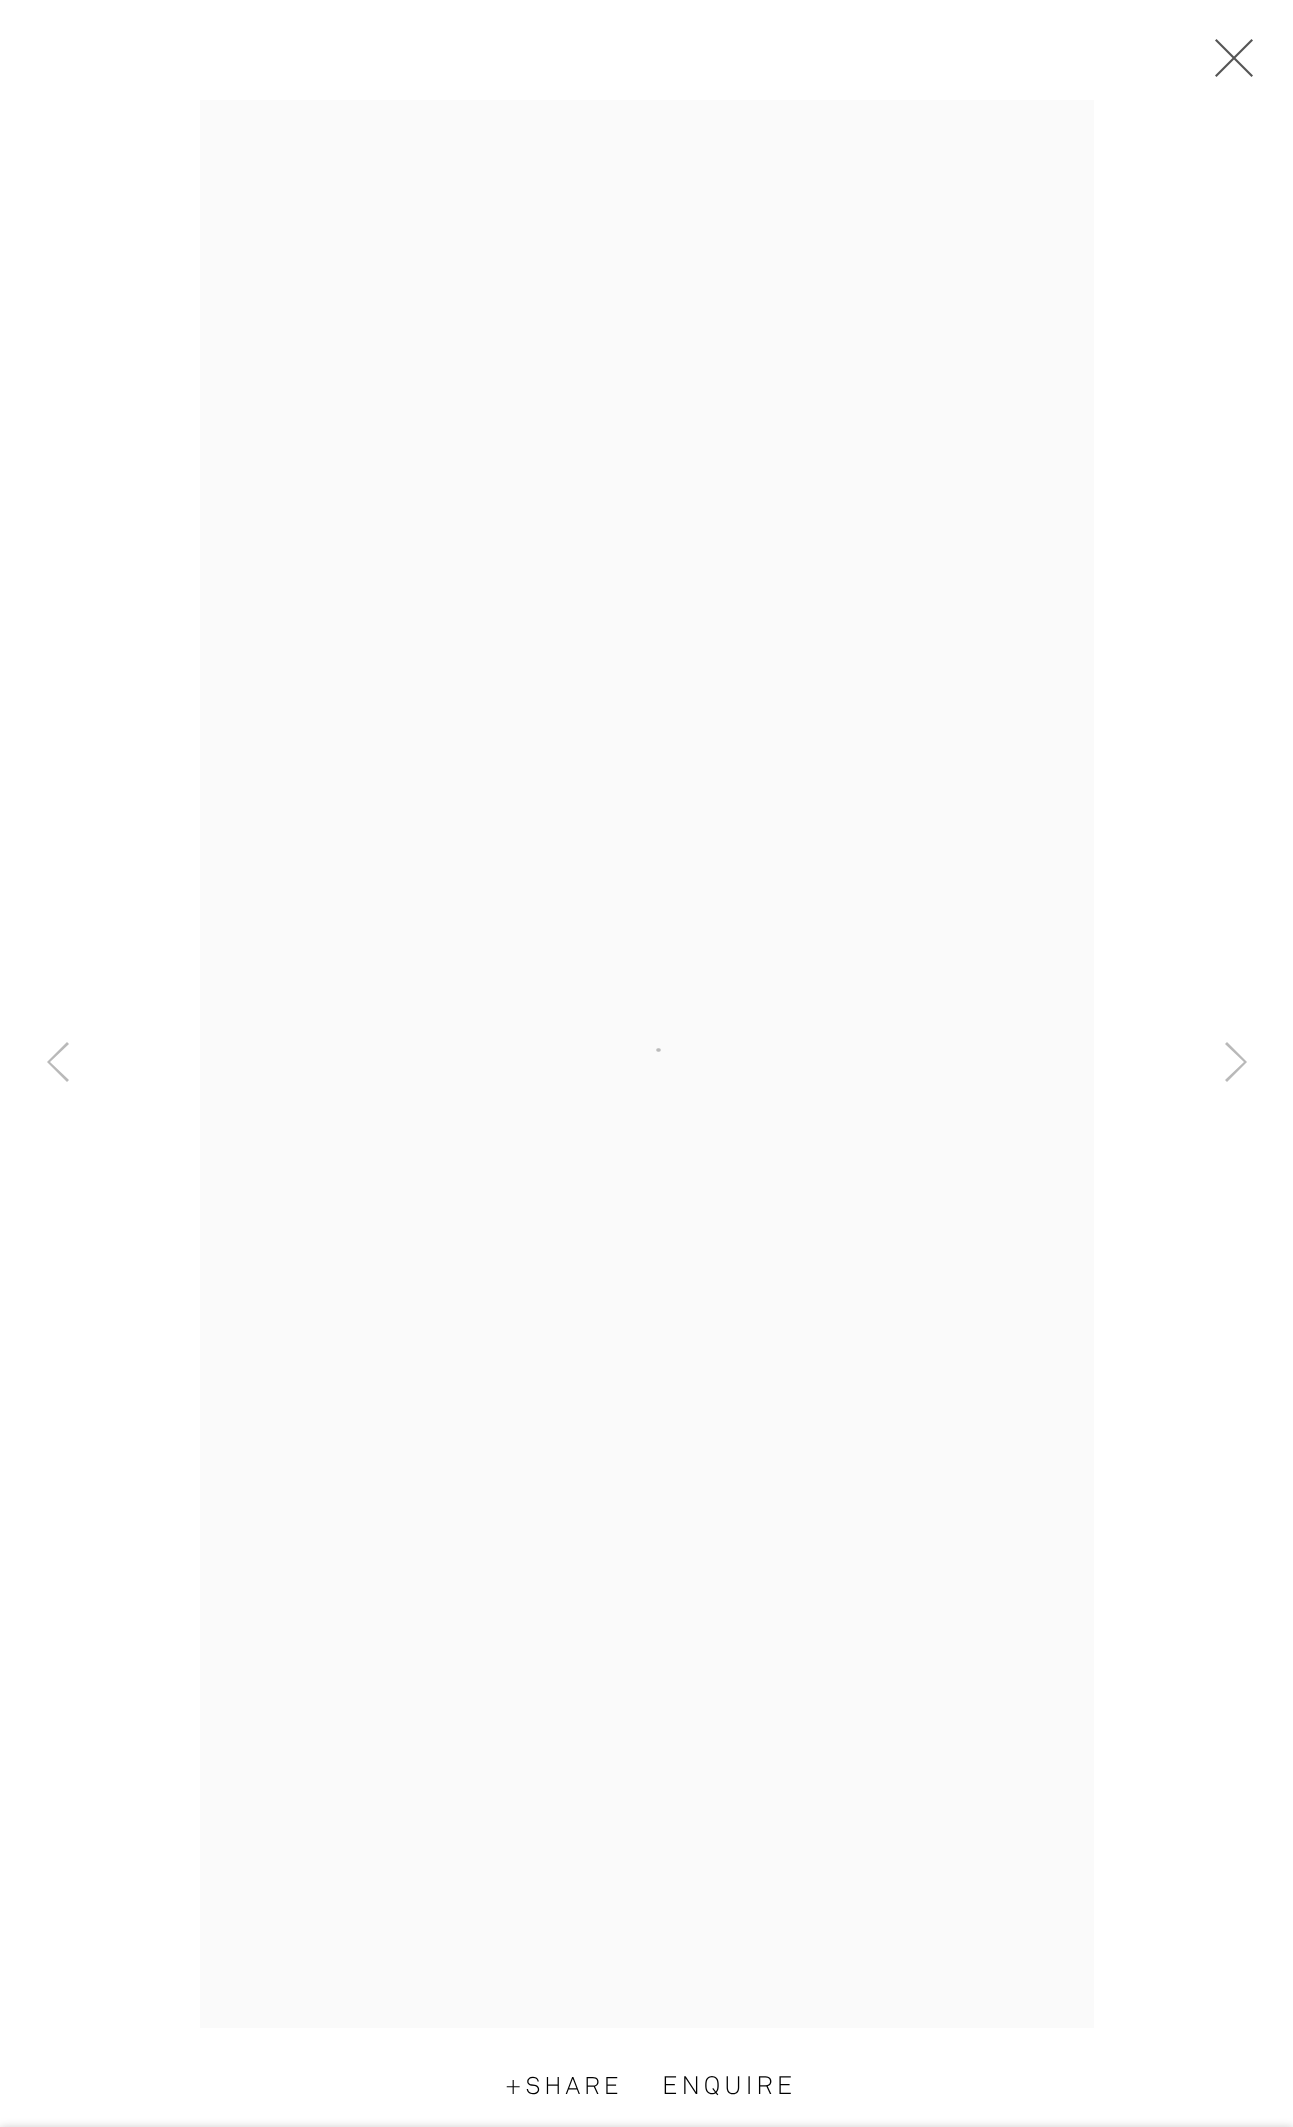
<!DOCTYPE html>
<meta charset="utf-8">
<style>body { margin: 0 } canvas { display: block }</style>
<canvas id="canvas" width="1293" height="2127"></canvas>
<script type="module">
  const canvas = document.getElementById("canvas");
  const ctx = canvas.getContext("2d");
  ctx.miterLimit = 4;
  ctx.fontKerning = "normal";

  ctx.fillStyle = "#ffffff";
  ctx.fillRect(0, 0, 1293, 2127);
  ctx.fillStyle = "#555555";
  ctx.beginPath();
  ctx.moveTo(1253, 40.5);
  ctx.lineTo(1251.5, 39);
  ctx.lineTo(1234, 56.5);
  ctx.lineTo(1216.5, 39);
  ctx.lineTo(1215, 40.5);
  ctx.lineTo(1232.5, 58);
  ctx.lineTo(1215, 75.5);
  ctx.lineTo(1216.5, 77);
  ctx.lineTo(1234, 59.5);
  ctx.lineTo(1251.5, 77);
  ctx.lineTo(1253, 75.5);
  ctx.lineTo(1235.5, 58);
  ctx.closePath();
  ctx.fill();
  ctx.fillStyle = "#b9b9b9";
  ctx.beginPath();
  ctx.moveTo(49, 1064);
  ctx.lineTo(67, 1082);
  ctx.lineTo(69, 1080);
  ctx.lineTo(50, 1062);
  ctx.lineTo(69, 1044);
  ctx.lineTo(67, 1042);
  ctx.lineTo(47, 1062);
  ctx.closePath();
  ctx.fill();
  ctx.beginPath();
  ctx.moveTo(1247, 1062);
  ctx.lineTo(1227, 1042);
  ctx.lineTo(1225, 1044);
  ctx.lineTo(1244, 1062);
  ctx.lineTo(1225, 1080);
  ctx.lineTo(1227, 1082);
  ctx.closePath();
  ctx.fill();
  ctx.fillStyle = "#fafafa";
  ctx.fillRect(200, 100, 894, 1928);
  ctx.beginPath();
  ctx.moveTo(658, 1050);
  ctx.lineTo(659, 1050);
  ctx.strokeStyle = "#bbbbbb";
  ctx.lineWidth = 3.6;
  ctx.lineCap = "round";
  ctx.stroke();
  ctx.letterSpacing = "4px";
  ctx.font = "300 24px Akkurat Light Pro";
  ctx.fillStyle = "#000000";
  ctx.fillText("+SHARE", 505, 2094);
  ctx.font = "300 25px Akkurat Light Pro";
  ctx.fillText("ENQUIRE", 662, 2094);
  ctx.fillStyle = "rgba(0, 0, 0, 0.23)";
  ctx.filter = "blur(5px)";
  ctx.beginPath();
  ctx.rect(0, 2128, 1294, 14);
  ctx.fill();
  ctx.filter = "none";
</script>
